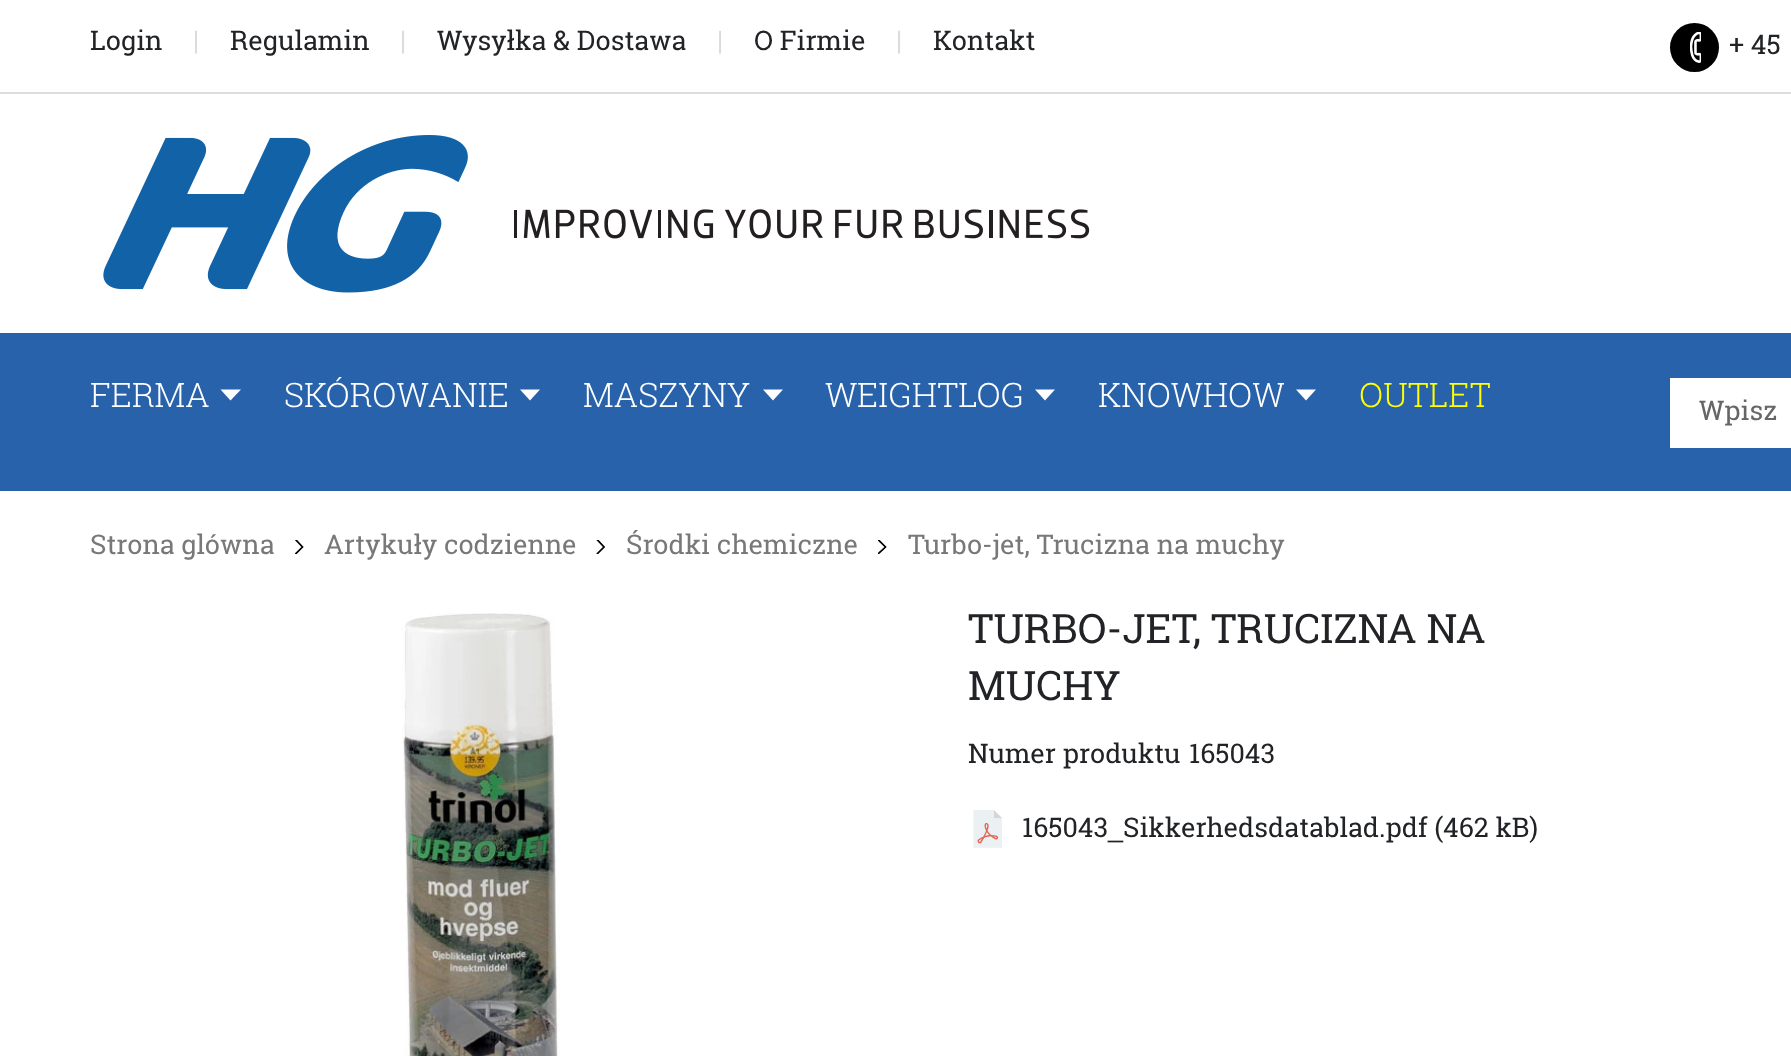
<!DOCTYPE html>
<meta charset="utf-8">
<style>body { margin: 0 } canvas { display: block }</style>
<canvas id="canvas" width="1791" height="1056"></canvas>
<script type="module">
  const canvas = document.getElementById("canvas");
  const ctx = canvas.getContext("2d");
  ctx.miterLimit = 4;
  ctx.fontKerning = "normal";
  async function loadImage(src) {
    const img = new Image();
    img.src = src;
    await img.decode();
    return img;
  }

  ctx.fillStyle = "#ffffff";
  ctx.fillRect(0, 0, 1791, 1056);
  ctx.fillStyle = "#dcdcdc";
  ctx.fillRect(0, 92, 1791, 2);
  ctx.font = "27px Roboto Slab";
  ctx.fillStyle = "#212326";
  ctx.fillText("Login", 90, 50);
  ctx.fillStyle = "#dcdcdc";
  ctx.fillText("|", 193, 50);
  ctx.fillStyle = "#212326";
  ctx.fillText("Regulamin", 230, 50);
  ctx.fillStyle = "#dcdcdc";
  ctx.fillText("|", 400, 50);
  ctx.fillStyle = "#212326";
  ctx.fillText("Wysyłka & Dostawa", 437, 50);
  ctx.fillStyle = "#dcdcdc";
  ctx.fillText("|", 717, 50);
  ctx.fillStyle = "#212326";
  ctx.fillText("O Firmie", 754, 50);
  ctx.fillStyle = "#dcdcdc";
  ctx.fillText("|", 896, 50);
  ctx.fillStyle = "#212326";
  ctx.fillText("Kontakt", 933, 50);
  ctx.fillStyle = "#000000";
  ctx.beginPath();
  ctx.arc(1694.5, 47.5, 24.5, 0, Math.PI * 2);
  ctx.fill();
  ctx.drawImage(await loadImage("img1.png"), 1690, 32, 11, 31);
  ctx.fillStyle = "#212326";
  ctx.fillText("+ 45", 1729, 54);
  ctx.drawImage(await loadImage("img2.png"), 103, 135, 987, 158);
  ctx.fillStyle = "#2762aa";
  ctx.fillRect(0, 333, 1791, 158);
  ctx.font = "300 33.75px Roboto Slab";
  ctx.fillStyle = "#ffffff";
  ctx.fillText("FERMA", 90, 407);
  ctx.beginPath();
  ctx.moveTo(220.5, 389.5);
  ctx.lineTo(230.5, 400.5);
  ctx.lineTo(241, 389.5);
  ctx.closePath();
  ctx.fill();
  ctx.fillText("SKÓROWANIE", 284, 407);
  ctx.beginPath();
  ctx.moveTo(520, 389.5);
  ctx.lineTo(530, 400.5);
  ctx.lineTo(540, 389.5);
  ctx.closePath();
  ctx.fill();
  ctx.fillText("MASZYNY", 583, 407);
  ctx.beginPath();
  ctx.moveTo(763, 389.5);
  ctx.lineTo(773, 400.5);
  ctx.lineTo(783, 389.5);
  ctx.closePath();
  ctx.fill();
  ctx.fillText("WEIGHTLOG", 825, 407);
  ctx.beginPath();
  ctx.moveTo(1035, 389.5);
  ctx.lineTo(1045, 400.5);
  ctx.lineTo(1055, 389.5);
  ctx.closePath();
  ctx.fill();
  ctx.fillText("KNOWHOW", 1098, 407);
  ctx.beginPath();
  ctx.moveTo(1296, 389.5);
  ctx.lineTo(1306, 400.5);
  ctx.lineTo(1316, 389.5);
  ctx.closePath();
  ctx.fill();
  ctx.fillStyle = "#ffff00";
  ctx.fillText("OUTLET", 1359, 407);
  ctx.fillStyle = "#ffffff";
  ctx.fillRect(1670, 378, 121, 70);
  ctx.font = "27px Roboto Slab";
  ctx.fillStyle = "#666666";
  ctx.fillText("Wpisz", 1699, 420);
  ctx.fillStyle = "#787878";
  ctx.fillText("Strona glówna", 90, 554);
  ctx.save();
  ctx.beginPath();
  ctx.rect(295, 540, 9, 14);
  ctx.clip();
  ctx.beginPath();
  ctx.moveTo(296, 540);
  ctx.lineTo(302.5, 547);
  ctx.lineTo(296, 553.5);
  ctx.strokeStyle = "#000000";
  ctx.lineWidth = 1.7;
  ctx.lineCap = "square";
  ctx.stroke();
  ctx.restore();
  ctx.fillText("Artykuły codzienne", 324, 554);
  ctx.save();
  ctx.beginPath();
  ctx.rect(596, 540, 9, 14);
  ctx.clip();
  ctx.beginPath();
  ctx.moveTo(597.5, 540);
  ctx.lineTo(604, 547);
  ctx.lineTo(597.5, 553.5);
  ctx.strokeStyle = "#000000";
  ctx.lineWidth = 1.7;
  ctx.lineCap = "square";
  ctx.stroke();
  ctx.restore();
  ctx.fillText("Środki chemiczne", 626, 554);
  ctx.save();
  ctx.beginPath();
  ctx.rect(878, 540, 9, 14);
  ctx.clip();
  ctx.beginPath();
  ctx.moveTo(878.5, 540);
  ctx.lineTo(885.5, 547);
  ctx.lineTo(878.5, 553.5);
  ctx.strokeStyle = "#000000";
  ctx.lineWidth = 1.7;
  ctx.lineCap = "square";
  ctx.stroke();
  ctx.restore();
  ctx.fillText("Turbo-jet, Trucizna na muchy", 908, 554);
  ctx.drawImage(await loadImage("img3.png"), 402, 613, 158, 443);
  ctx.font = "40.5px Roboto Slab";
  ctx.fillStyle = "#212326";
  ctx.fillText("TURBO-JET, TRUCIZNA NA", 968, 643);
  ctx.fillText("MUCHY", 968, 700);
  ctx.font = "27px Roboto Slab";
  ctx.fillText("Numer produktu", 968, 763);
  ctx.fillText("165043", 1189, 763);
  ctx.drawImage(await loadImage("img4.png"), 973, 810, 29, 38);
  ctx.fillText("165043", 1022, 837);
  ctx.fillText("Sikkerhedsdatablad.pdf (462 kB)", 1123, 837);
  ctx.font = "27px Liberation Sans";
  ctx.fillText("_", 1108, 837);
</script>
